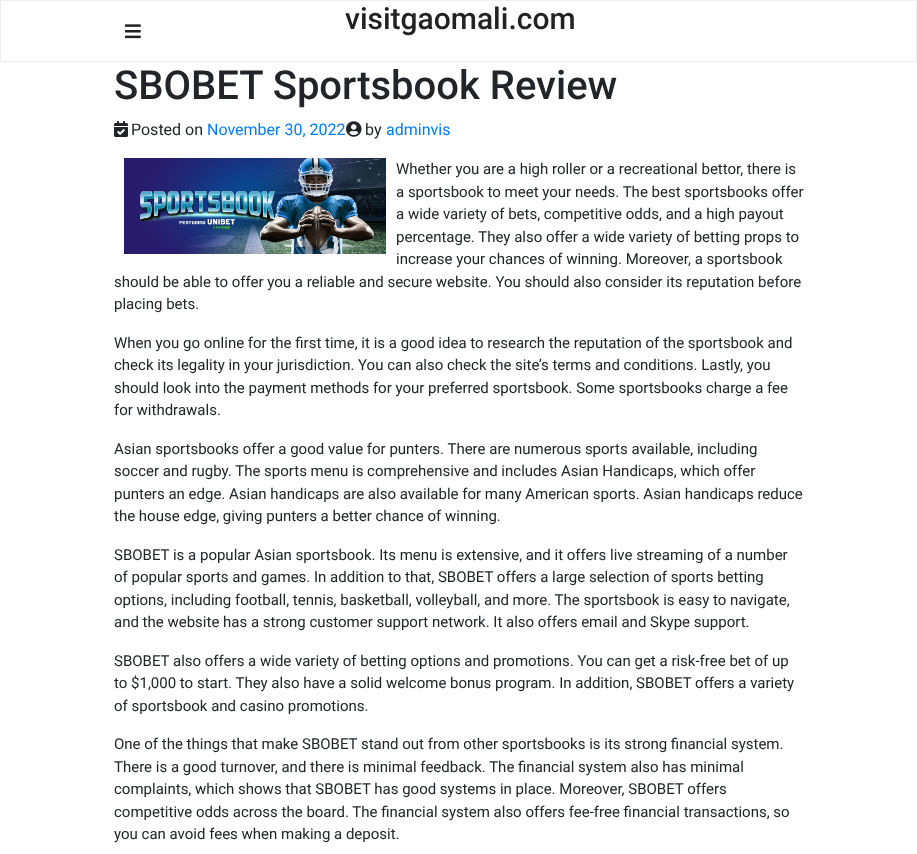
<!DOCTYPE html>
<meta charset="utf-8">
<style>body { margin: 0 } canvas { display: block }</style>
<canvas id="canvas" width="917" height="854"></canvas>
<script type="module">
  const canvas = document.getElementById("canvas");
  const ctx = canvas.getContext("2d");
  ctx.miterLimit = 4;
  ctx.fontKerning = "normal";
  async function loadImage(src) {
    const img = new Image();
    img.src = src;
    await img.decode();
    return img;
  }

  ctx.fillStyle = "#ffffff";
  ctx.fillRect(0, 0, 917, 854);
  ctx.strokeStyle = "#eeeeee";
  ctx.strokeRect(0.5, 0.5, 916, 61);
  ctx.drawImage(await loadImage("img1.png"), 125, 24, 16, 15);
  ctx.font = "500 30px Roboto";
  ctx.fillStyle = "#222222";
  ctx.fillText("visitgaomali.com", 345, 29);
  ctx.font = "500 40px Roboto";
  ctx.fillStyle = "#212529";
  ctx.fillText("SBOBET Sportsbook Review", 114, 99);
  ctx.drawImage(await loadImage("img2.png"), 114, 121, 14, 16);
  ctx.font = "16px Roboto";
  ctx.fillText("Posted on", 131, 135);
  ctx.fillStyle = "#007bff";
  ctx.fillText("November 30, 2022", 207, 135);
  ctx.drawImage(await loadImage("img3.png"), 346, 121, 16, 16);
  ctx.fillStyle = "#212529";
  ctx.fillText("by", 365, 135);
  ctx.fillStyle = "#007bff";
  ctx.fillText("adminvis", 386, 135);
  ctx.drawImage(await loadImage("img4.png"), 124, 158, 262, 96);
  ctx.font = "15px Roboto";
  ctx.fillStyle = "#212529";
  ctx.fillText("Whether you are a high roller or a recreational bettor, there is", 396, 174);
  ctx.fillText("a sportsbook to meet your needs. The best sportsbooks offer", 396, 197);
  ctx.fillText("a wide variety of bets, competitive odds, and a high payout", 396, 219);
  ctx.fillText("percentage. They also offer a wide variety of betting props to", 396, 242);
  ctx.fillText("increase your chances of winning. Moreover, a sportsbook", 396, 264);
  ctx.fillText("should be able to offer you a reliable and secure website. You should also consider its reputation before", 114, 287);
  ctx.fillText("placing bets.", 114, 309);
  ctx.fillText("When you go online for the first time, it is a good idea to research the reputation of the sportsbook and", 114, 348);
  ctx.fillText("check its legality in your jurisdiction. You can also check the site’s terms and conditions. Lastly, you", 114, 370);
  ctx.fillText("should look into the payment methods for your preferred sportsbook. Some sportsbooks charge a fee", 114, 393);
  ctx.fillText("for withdrawals.", 114, 415);
  ctx.fillText("Asian sportsbooks offer a good value for punters. There are numerous sports available, including", 114, 454);
  ctx.fillText("soccer and rugby. The sports menu is comprehensive and includes Asian Handicaps, which offer", 114, 476);
  ctx.fillText("punters an edge. Asian handicaps are also available for many American sports. Asian handicaps reduce", 114, 499);
  ctx.fillText("the house edge, giving punters a better chance of winning.", 114, 521);
  ctx.fillText("SBOBET is a popular Asian sportsbook. Its menu is extensive, and it offers live streaming of a number", 114, 560);
  ctx.fillText("of popular sports and games. In addition to that, SBOBET offers a large selection of sports betting", 114, 582);
  ctx.fillText("options, including football, tennis, basketball, volleyball, and more. The sportsbook is easy to navigate,", 114, 605);
  ctx.fillText("and the website has a strong customer support network. It also offers email and Skype support.", 114, 627);
  ctx.fillText("SBOBET also offers a wide variety of betting options and promotions. You can get a risk-free bet of up", 114, 666);
  ctx.fillText("to $1,000 to start. They also have a solid welcome bonus program. In addition, SBOBET offers a variety", 114, 688);
  ctx.fillText("of sportsbook and casino promotions.", 114, 711);
  ctx.fillText("One of the things that make SBOBET stand out from other sportsbooks is its strong financial system.", 114, 749);
  ctx.fillText("There is a good turnover, and there is minimal feedback. The financial system also has minimal", 114, 772);
  ctx.fillText("complaints, which shows that SBOBET has good systems in place. Moreover, SBOBET offers", 114, 794);
  ctx.fillText("competitive odds across the board. The financial system also offers fee-free financial transactions, so", 114, 817);
  ctx.fillText("you can avoid fees when making a deposit.", 114, 839);
</script>
